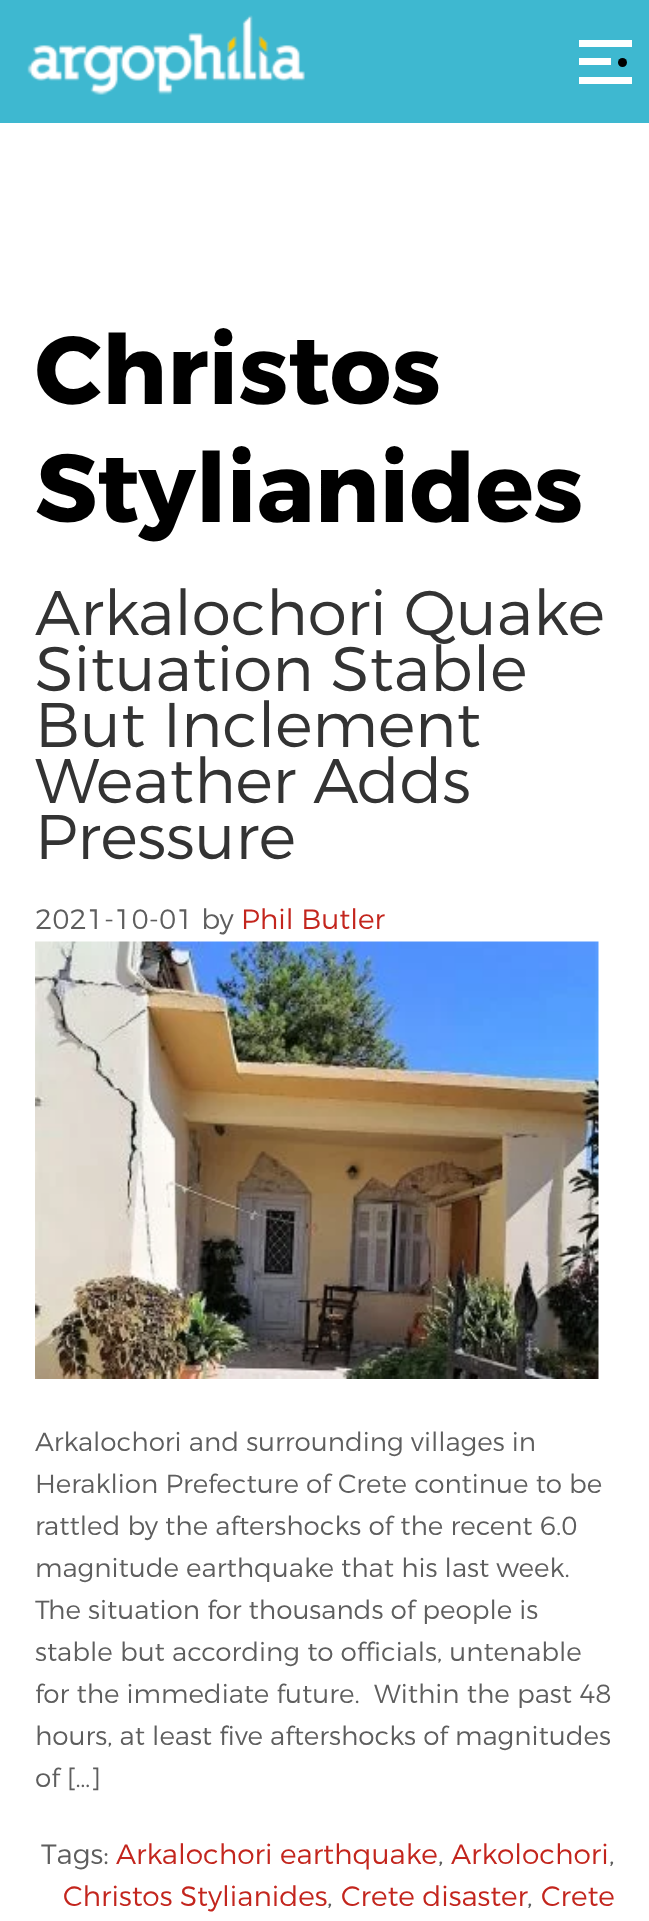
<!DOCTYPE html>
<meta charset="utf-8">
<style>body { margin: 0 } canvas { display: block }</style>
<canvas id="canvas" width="649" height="1921"></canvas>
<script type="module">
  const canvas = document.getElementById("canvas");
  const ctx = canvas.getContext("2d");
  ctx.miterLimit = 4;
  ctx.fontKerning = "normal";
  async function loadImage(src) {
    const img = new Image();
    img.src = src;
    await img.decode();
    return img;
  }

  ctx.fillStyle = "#ffffff";
  ctx.fillRect(0, 0, 649, 1921);
  ctx.fillStyle = "#3eb8d0";
  ctx.fillRect(0, 0, 649, 123);
  ctx.drawImage(await loadImage("img1.png"), 27, 15, 278, 80);
  ctx.fillStyle = "#ffffff";
  ctx.fillRect(579, 40, 53, 7);
  ctx.fillRect(579, 58, 32, 7);
  ctx.fillStyle = "#000000";
  ctx.beginPath();
  ctx.arc(622.5, 62.5, 4.5, 0, Math.PI * 2);
  ctx.fill();
  ctx.fillStyle = "#ffffff";
  ctx.fillRect(579, 77, 53, 7);
  ctx.font = "bold 96.25px Montserrat";
  ctx.fillStyle = "#000000";
  ctx.fillText("Christos", 35, 404);
  ctx.fillText("Stylianides", 35, 522);
  ctx.font = "300 63px Montserrat";
  ctx.fillStyle = "#333333";
  ctx.fillText("Arkalochori Quake", 35, 635);
  ctx.fillText("Situation Stable", 35, 691);
  ctx.fillText("But Inclement", 35, 747);
  ctx.fillText("Weather Adds", 35, 803);
  ctx.fillText("Pressure", 35, 859);
  ctx.font = "300 28px Montserrat";
  ctx.fillStyle = "#5e5e5e";
  ctx.fillText("2021-10-01 by", 35, 929);
  ctx.fillStyle = "#c3251d";
  ctx.fillText("Phil Butler", 241, 929);
  ctx.drawImage(await loadImage("img2.png"), 35, 941, 564, 438);
  ctx.font = "300 26.25px Montserrat";
  ctx.fillStyle = "#5e5e5e";
  ctx.fillText("Arkalochori and surrounding villages in", 35, 1451);
  ctx.fillText("Heraklion Prefecture of Crete continue to be", 35, 1493);
  ctx.fillText("rattled by the aftershocks of the recent 6.0", 35, 1535);
  ctx.fillText("magnitude earthquake that his last week.", 35, 1577);
  ctx.fillText("The situation for thousands of people is", 35, 1619);
  ctx.fillText("stable but according to officials, untenable", 35, 1661);
  ctx.fillText("for the immediate future.  Within the past 48", 35, 1703);
  ctx.fillText("hours, at least five aftershocks of magnitudes", 35, 1745);
  ctx.fillText("of […]", 35, 1787);
  ctx.font = "300 28px Montserrat";
  ctx.fillText("Tags:", 41, 1864);
  ctx.fillStyle = "#c3251d";
  ctx.fillText("Arkalochori earthquake", 116, 1864);
  ctx.fillStyle = "#5e5e5e";
  ctx.fillText(",", 438, 1864);
  ctx.fillStyle = "#c3251d";
  ctx.fillText("Arkolochori", 451, 1864);
  ctx.fillStyle = "#5e5e5e";
  ctx.fillText(",", 609, 1864);
  ctx.fillStyle = "#c3251d";
  ctx.fillText("Christos Stylianides", 63, 1906);
  ctx.fillStyle = "#5e5e5e";
  ctx.fillText(",", 327, 1906);
  ctx.fillStyle = "#c3251d";
  ctx.fillText("Crete disaster", 341, 1906);
  ctx.fillStyle = "#5e5e5e";
  ctx.fillText(",", 527, 1906);
  ctx.fillStyle = "#c3251d";
  ctx.fillText("Crete", 541, 1906);
</script>
